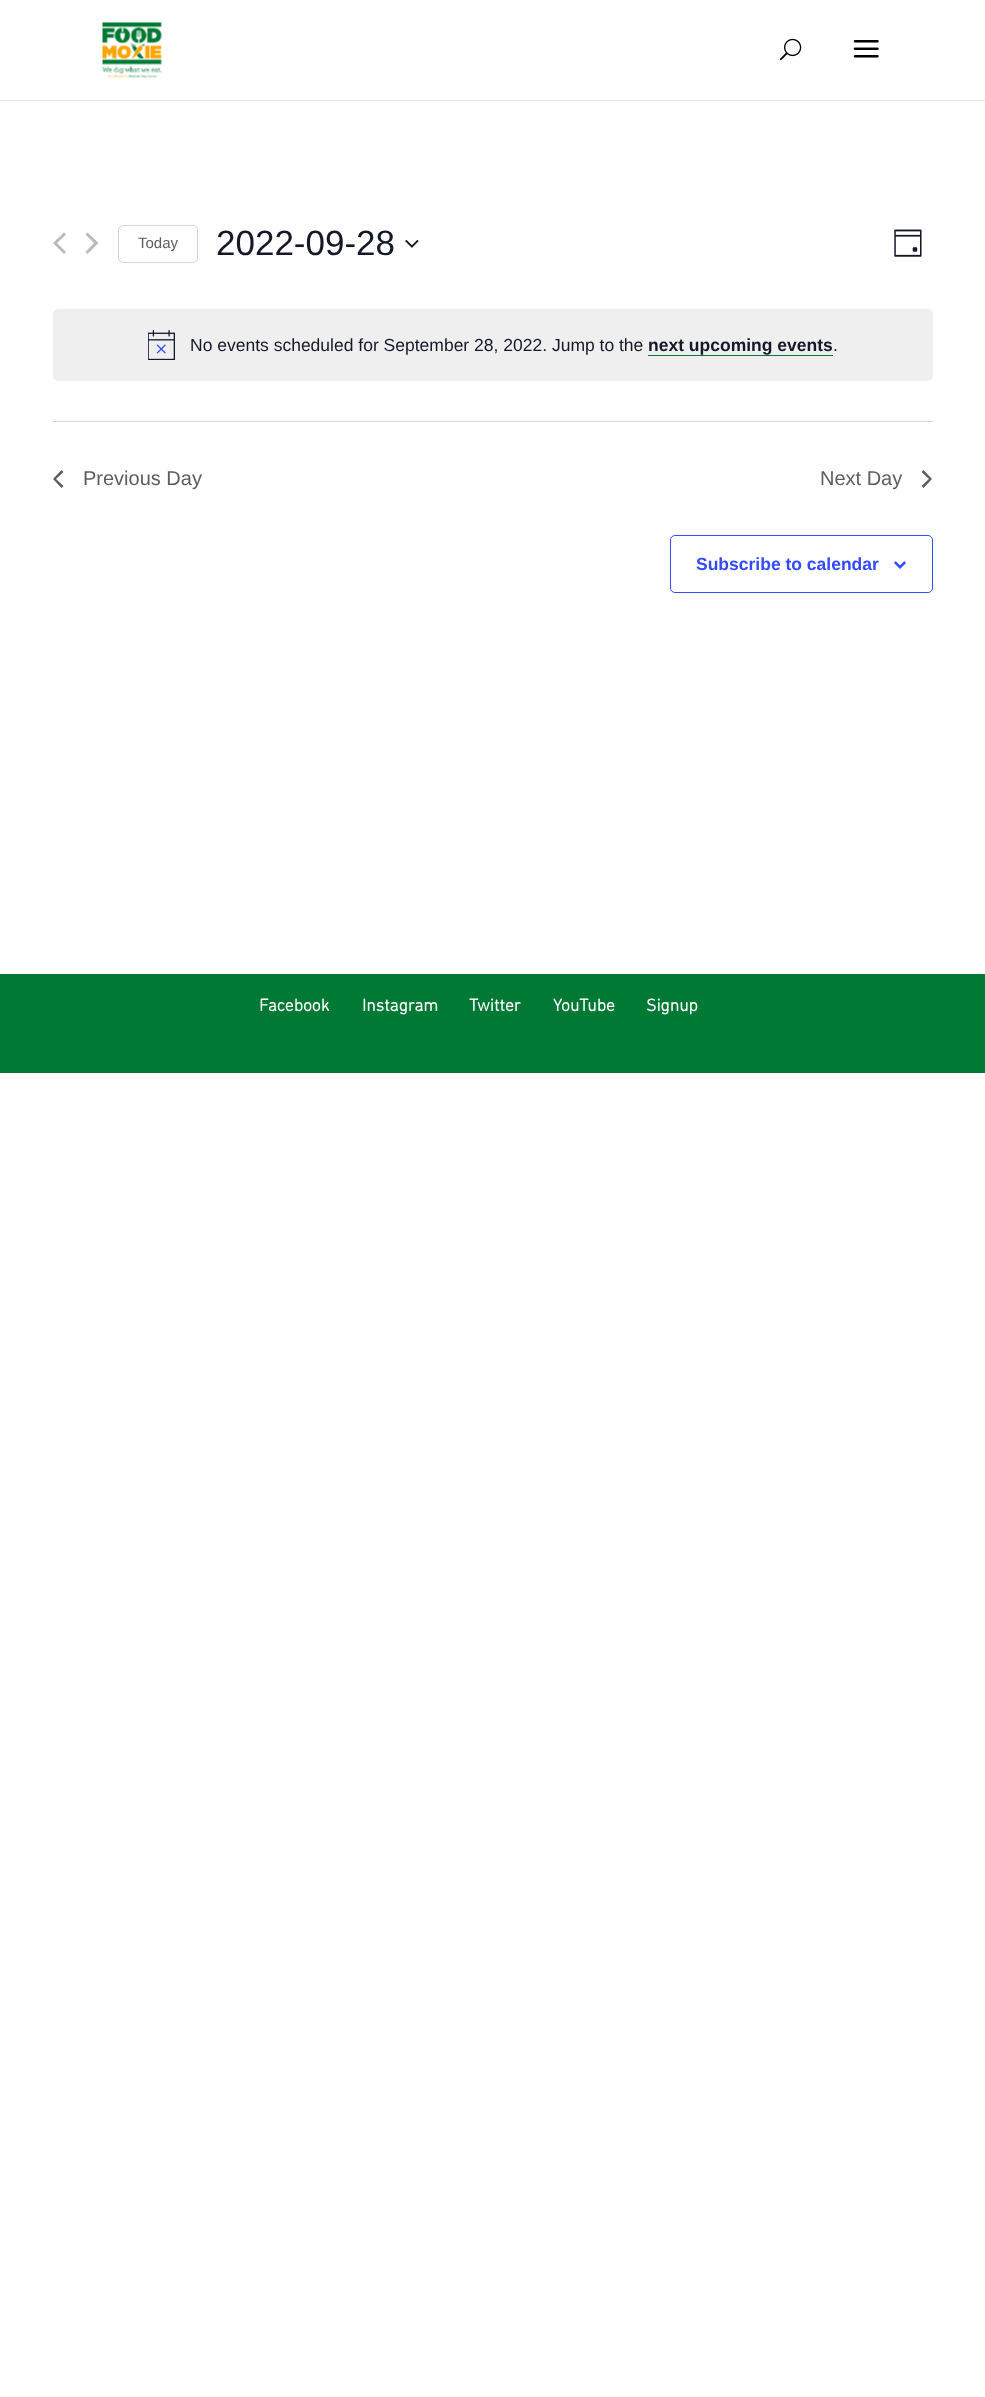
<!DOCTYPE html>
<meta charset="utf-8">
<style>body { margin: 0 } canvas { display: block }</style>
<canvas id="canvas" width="985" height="2397"></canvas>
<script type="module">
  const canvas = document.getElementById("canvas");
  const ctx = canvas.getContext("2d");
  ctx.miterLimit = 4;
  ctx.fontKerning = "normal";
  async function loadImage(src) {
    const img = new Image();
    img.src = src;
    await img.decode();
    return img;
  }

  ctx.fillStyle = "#ffffff";
  ctx.fillRect(0, 0, 985, 2397);
  ctx.fillStyle = "#e6e6e6";
  ctx.fillRect(0, 100, 985, 1);
  ctx.drawImage(await loadImage("img1.png"), 102, 22, 60, 56);
  ctx.drawImage(await loadImage("img2.png"), 780, 38, 22, 23);
  ctx.drawImage(await loadImage("img3.png"), 853, 40, 26, 18);
  ctx.fillStyle = "#bababa";
  ctx.beginPath();
  ctx.moveTo(66, 252);
  ctx.lineTo(64, 254);
  ctx.lineTo(53, 243);
  ctx.lineTo(64, 232.5);
  ctx.lineTo(66, 234.5);
  ctx.lineTo(57, 243);
  ctx.closePath();
  ctx.moveTo(85.5, 234.5);
  ctx.lineTo(87.5, 232.5);
  ctx.lineTo(98.5, 243);
  ctx.lineTo(87.5, 254);
  ctx.lineTo(85.5, 252);
  ctx.lineTo(94, 243);
  ctx.closePath();
  ctx.fill();
  ctx.beginPath();
  ctx.roundRect(118.5, 225.5, 79, 37, 4.5);
  ctx.strokeStyle = "#d5d5d5";
  ctx.stroke();
  ctx.font = "15px Liberation Sans";
  ctx.fillStyle = "#5d5d5d";
  ctx.fillText("Today", 138, 248);
  ctx.font = "35px Liberation Sans";
  ctx.fillStyle = "#141827";
  ctx.fillText("2022-09-28", 216, 255);
  ctx.drawImage(await loadImage("img4.png"), 405, 239, 14, 9);
  ctx.drawImage(await loadImage("img5.png"), 894, 229, 28, 28);
  ctx.fillStyle = "#efeff0";
  ctx.beginPath();
  ctx.roundRect(53, 309, 880, 72, 5);
  ctx.fill();
  ctx.drawImage(await loadImage("img6.png"), 148, 330, 27, 30);
  ctx.font = "17.5px Liberation Sans";
  ctx.fillStyle = "#141827";
  ctx.fillText("No events scheduled for September 28, 2022. Jump to the", 190, 351);
  ctx.font = "bold 17.5px Liberation Sans";
  ctx.fillText("next upcoming events", 648, 351);
  ctx.fillStyle = "#007934";
  ctx.fillRect(648, 355, 185, 1);
  ctx.font = "17.5px Liberation Sans";
  ctx.fillStyle = "#141827";
  ctx.fillText(".", 833, 351);
  ctx.fillStyle = "#d5d5d5";
  ctx.fillRect(53, 421, 880, 1);
  ctx.fillStyle = "#5d5d5d";
  ctx.beginPath();
  ctx.moveTo(63.5, 486);
  ctx.lineTo(61.5, 488);
  ctx.lineTo(53, 479);
  ctx.lineTo(61.5, 470);
  ctx.lineTo(63.5, 472);
  ctx.lineTo(56, 479);
  ctx.closePath();
  ctx.fill();
  ctx.font = "20px Liberation Sans";
  ctx.fillText("Previous Day", 83, 485);
  ctx.fillText("Next Day", 820, 485);
  ctx.beginPath();
  ctx.moveTo(921.5, 472);
  ctx.lineTo(923.5, 470);
  ctx.lineTo(932, 479);
  ctx.lineTo(923.5, 488);
  ctx.lineTo(921.5, 486);
  ctx.lineTo(929, 479);
  ctx.closePath();
  ctx.fill();
  ctx.beginPath();
  ctx.roundRect(670.5, 535.5, 262, 57, 4.5);
  ctx.strokeStyle = "#334aff";
  ctx.stroke();
  ctx.font = "bold 17.5px Liberation Sans";
  ctx.fillStyle = "#334aff";
  ctx.fillText("Subscribe to calendar", 696, 570);
  ctx.drawImage(await loadImage("img7.png"), 894, 561, 12, 8);
  ctx.fillStyle = "#007934";
  ctx.fillRect(0, 974, 985, 99);
  ctx.font = "bold 17.5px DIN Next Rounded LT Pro";
  ctx.fillStyle = "#ffffff";
  ctx.fillText("Facebook", 259, 1011);
  ctx.fillText("Instagram", 362, 1011);
  ctx.fillText("Twitter", 469, 1011);
  ctx.fillText("YouTube", 553, 1011);
  ctx.fillText("Signup", 646, 1011);
</script>
